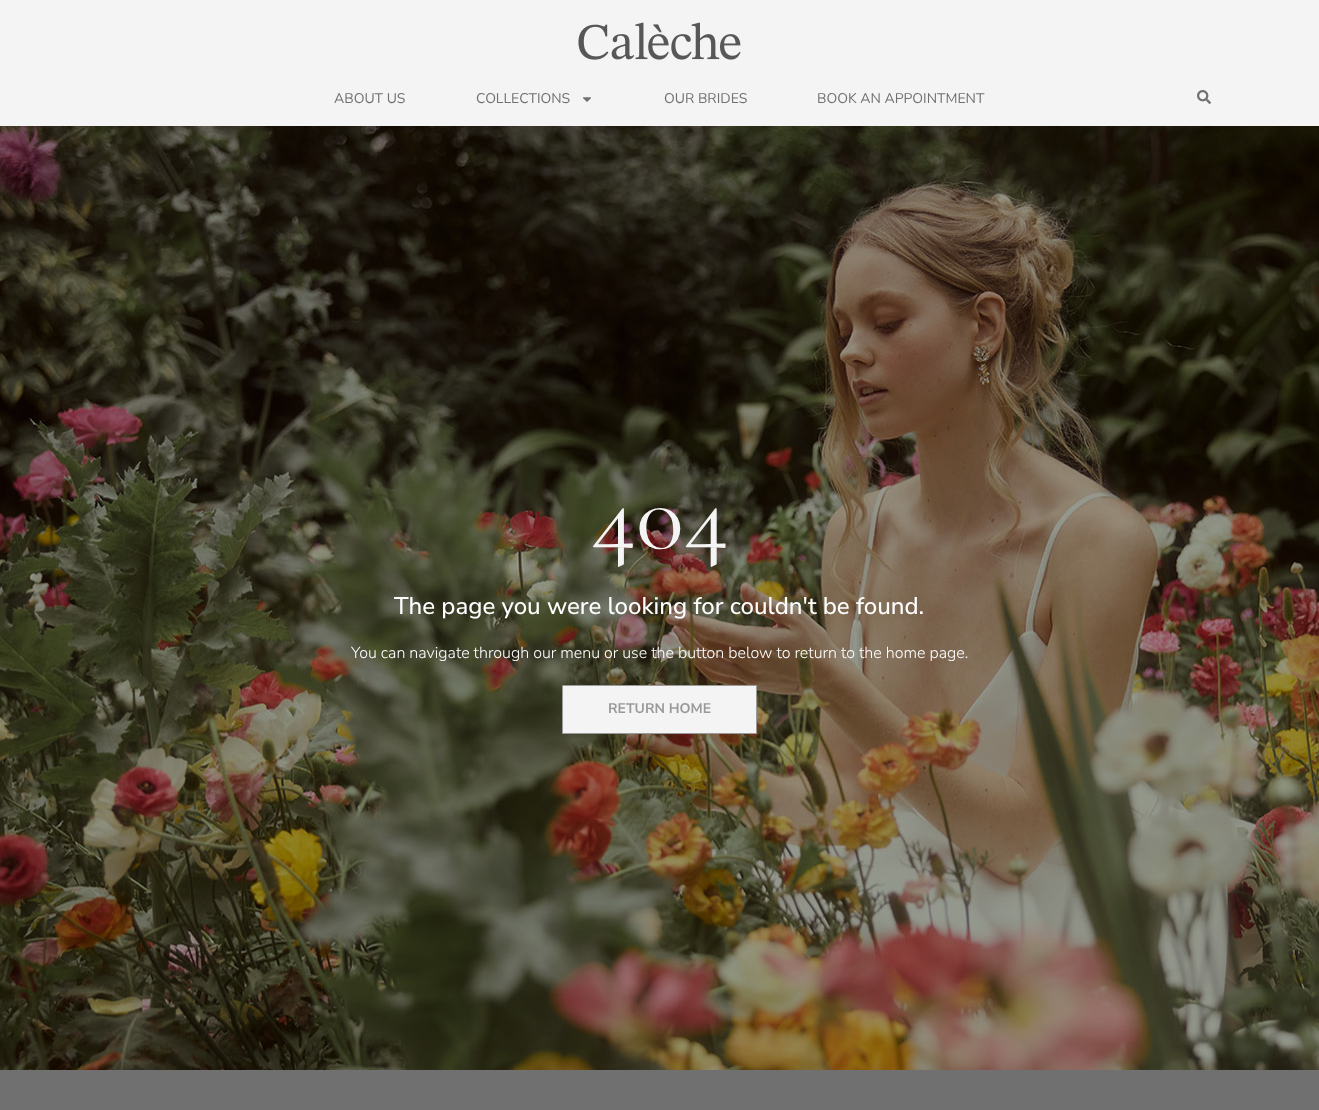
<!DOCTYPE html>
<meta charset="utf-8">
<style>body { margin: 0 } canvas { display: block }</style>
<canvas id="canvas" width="1319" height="1110"></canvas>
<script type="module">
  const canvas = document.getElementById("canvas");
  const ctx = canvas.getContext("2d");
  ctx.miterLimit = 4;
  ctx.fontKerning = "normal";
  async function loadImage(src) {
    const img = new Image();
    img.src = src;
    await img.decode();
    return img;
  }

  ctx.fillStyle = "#f4f4f4";
  ctx.fillRect(0, 0, 1319, 1110);
  ctx.drawImage(await loadImage("img1.png"), 578, 22, 163, 38);
  ctx.font = "14px Nunito";
  ctx.fillStyle = "#707070";
  ctx.fillText("ABOUT US", 334, 103);
  ctx.fillText("COLLECTIONS", 476, 103);
  ctx.drawImage(await loadImage("img2.png"), 583, 97, 8, 5);
  ctx.fillText("OUR BRIDES", 664, 103);
  ctx.fillText("BOOK AN APPOINTMENT", 817, 103);
  ctx.drawImage(await loadImage("img3.png"), 1197, 90, 14, 14);
  ctx.drawImage(await loadImage("img4.png"), 0, 126, 1319, 944);
  ctx.font = "100px Cormorant";
  ctx.fillStyle = "#f4f4f4";
  ctx.fillText("404", 591, 548);
  ctx.font = "500 24px Nunito Sans";
  ctx.fillStyle = "#ffffff";
  ctx.fillText("The page you were looking for couldn't be found.", 394, 614);
  ctx.font = "300 16px Nunito Sans";
  ctx.fillText("You can navigate through our menu or use the button below to return to the home page.", 351, 658);
  ctx.fillStyle = "#f4f4f4";
  ctx.beginPath();
  ctx.rect(562.5, 685.5, 194, 48);
  ctx.fill();
  ctx.strokeStyle = "#9a9a9a";
  ctx.stroke();
  ctx.font = "bold 14px Nunito Sans";
  ctx.fillStyle = "#9a9a9a";
  ctx.fillText("RETURN HOME", 608, 713);
  ctx.fillStyle = "#707070";
  ctx.fillRect(0, 1070, 1319, 40);
</script>
